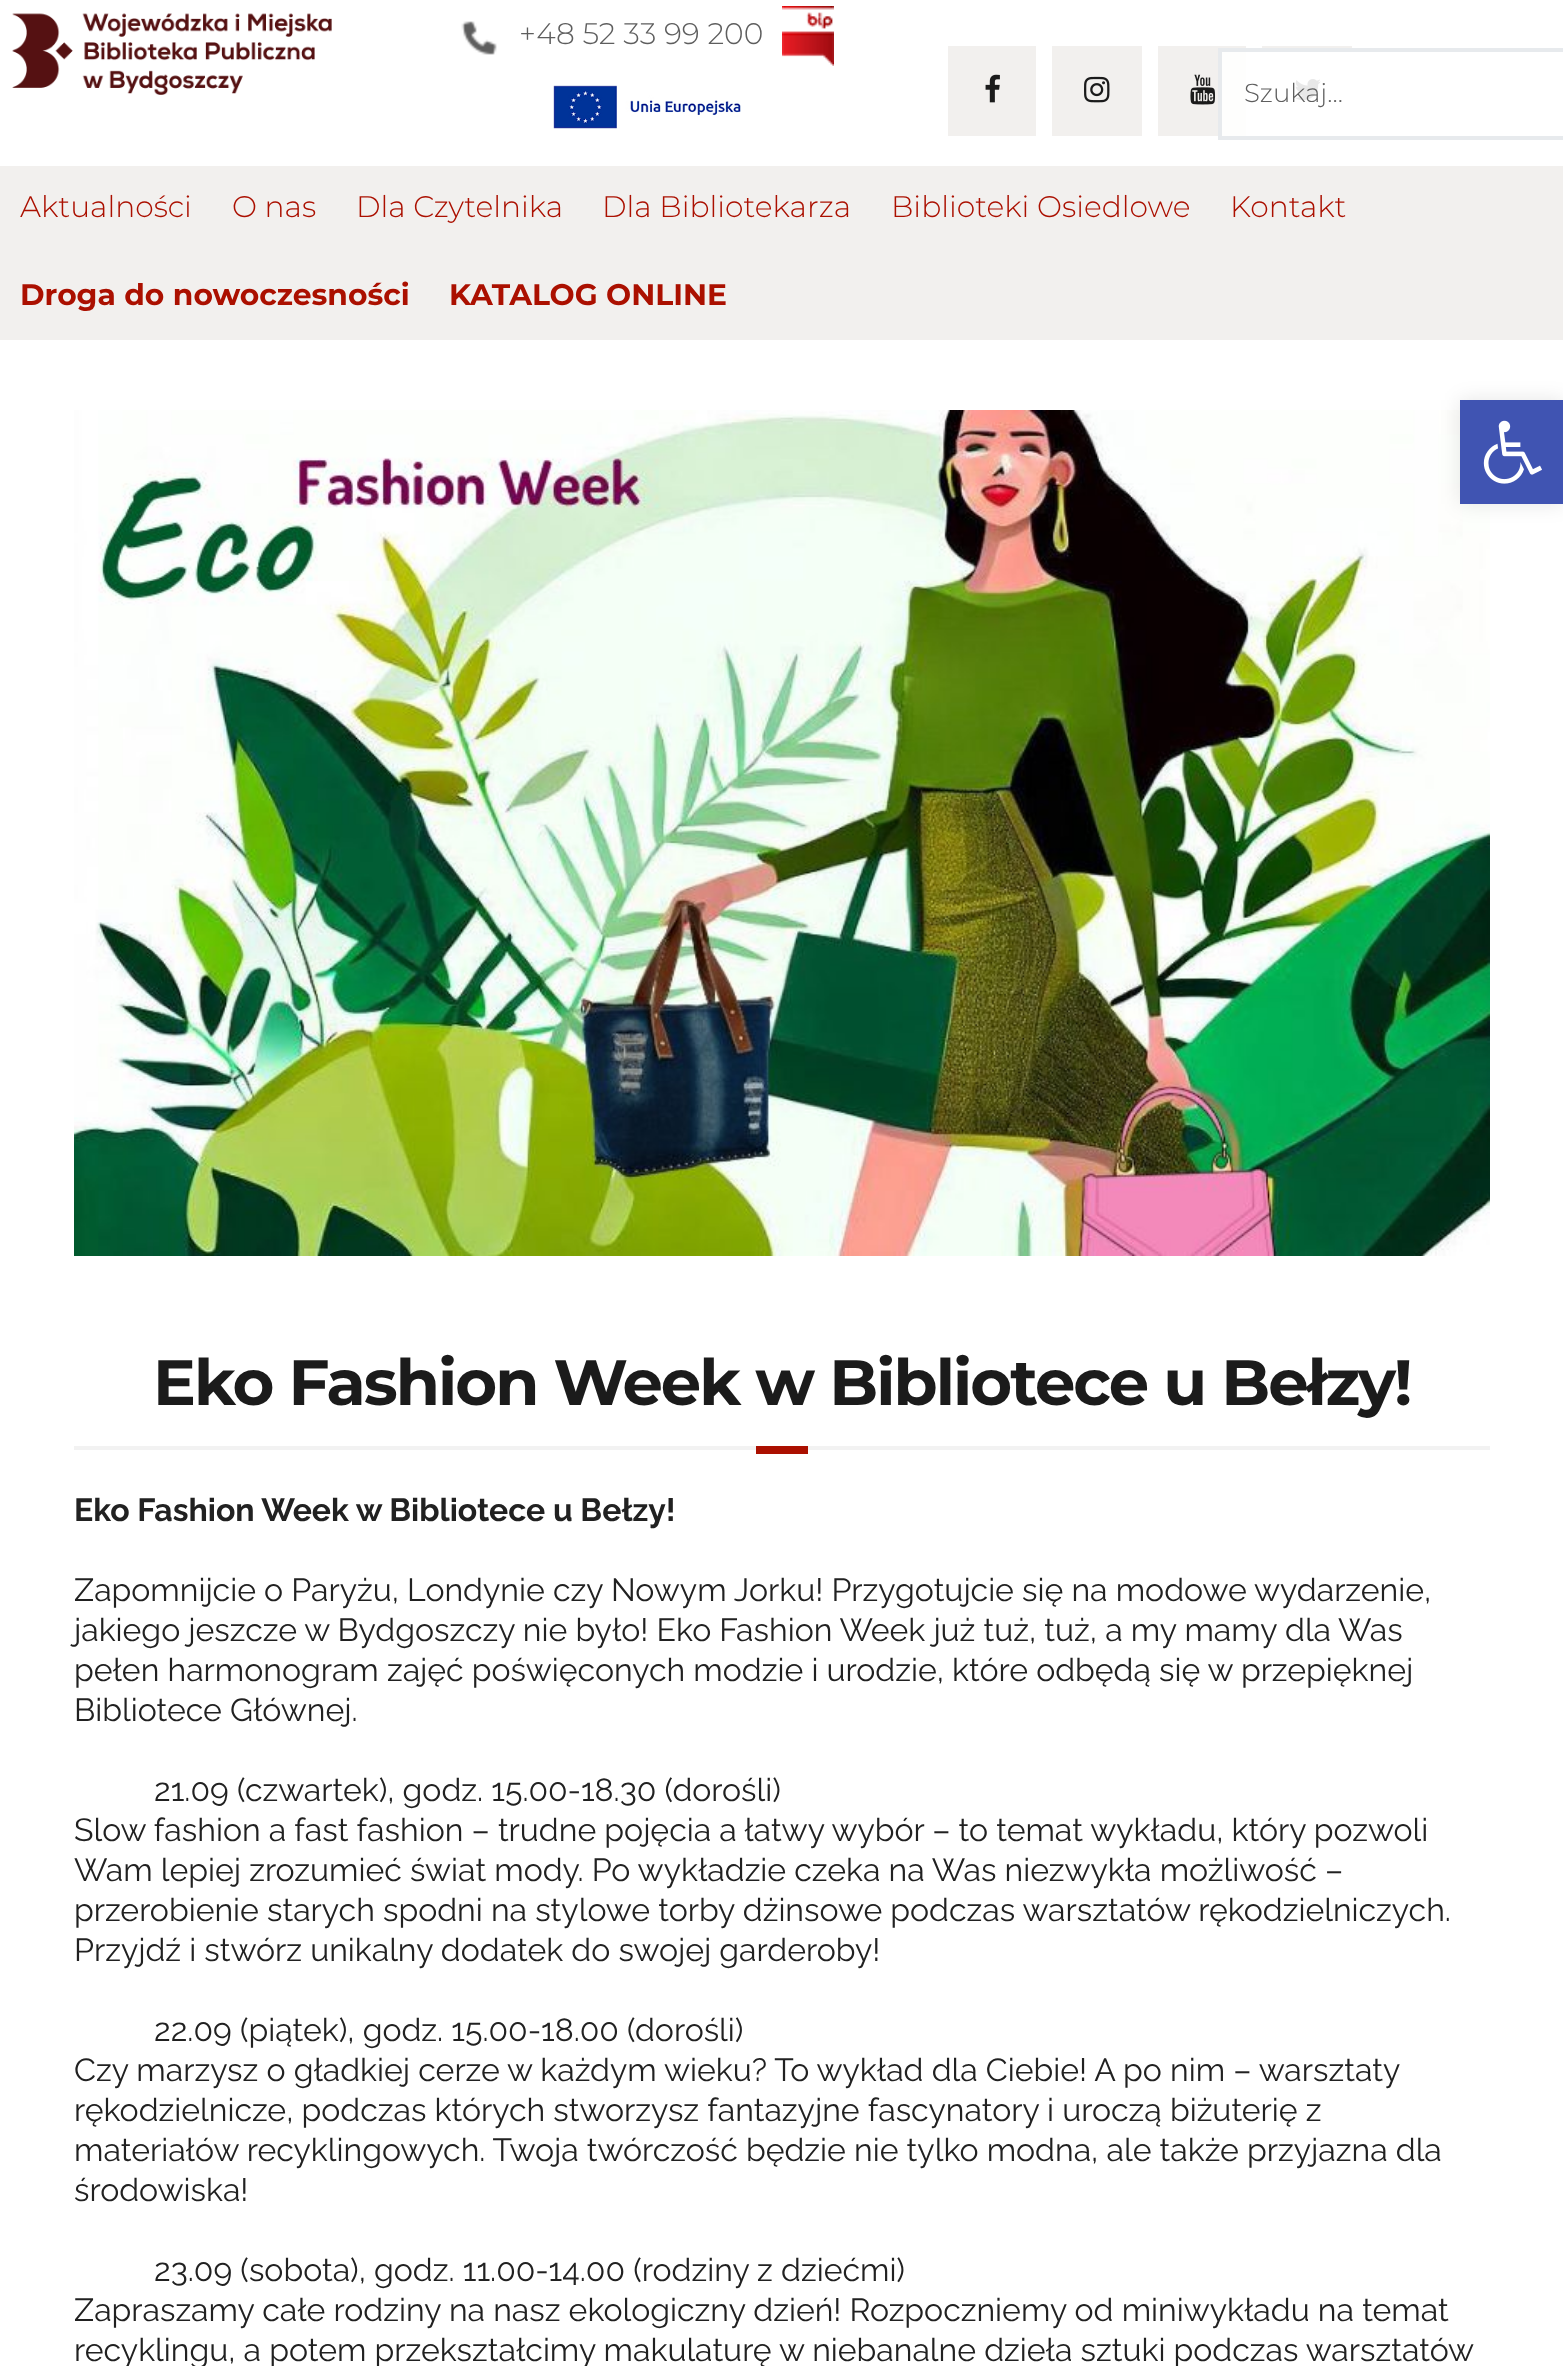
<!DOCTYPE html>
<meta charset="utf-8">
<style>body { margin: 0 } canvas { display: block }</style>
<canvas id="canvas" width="1563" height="2366"></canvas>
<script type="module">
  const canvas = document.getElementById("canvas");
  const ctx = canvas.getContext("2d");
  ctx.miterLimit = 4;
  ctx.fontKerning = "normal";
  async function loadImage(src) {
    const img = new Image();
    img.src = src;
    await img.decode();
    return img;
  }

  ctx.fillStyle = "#ffffff";
  ctx.fillRect(0, 0, 1563, 2366);
  ctx.drawImage(await loadImage("img1.png"), 12, 13, 320, 82);
  ctx.drawImage(await loadImage("img2.png"), 461, 21, 36, 34);
  ctx.font = "300 29.75px Montserrat";
  ctx.fillStyle = "#5e5e5e";
  ctx.fillText("+48 52 33 99 200", 519, 44);
  ctx.drawImage(await loadImage("img3.png"), 782, 6, 52, 60);
  ctx.drawImage(await loadImage("img4.png"), 553, 85, 188, 44);
  ctx.fillStyle = "#f2f0ee";
  ctx.fillRect(948, 46, 88, 90);
  ctx.drawImage(await loadImage("img5.png"), 985, 74, 15, 29);
  ctx.fillRect(1052, 46, 90, 90);
  ctx.drawImage(await loadImage("img6.png"), 1084, 76, 26, 27);
  ctx.fillRect(1158, 46, 88, 90);
  ctx.fillStyle = "#fefefd";
  ctx.fillRect(1222, 52, 24, 84);
  ctx.drawImage(await loadImage("img7.png"), 1190, 74, 25, 31);
  ctx.fillStyle = "#f2f0ee";
  ctx.fillRect(1262, 46, 90, 2);
  ctx.drawImage(await loadImage("img8.png"), 1295, 79, 26, 22);
  ctx.strokeStyle = "#e7eaed";
  ctx.lineWidth = 4;
  ctx.strokeRect(1220, 50, 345, 88);
  ctx.font = "300 26px Montserrat";
  ctx.fillStyle = "#5e5e5e";
  ctx.fillText("Szukaj...", 1244, 102);
  ctx.fillStyle = "#f2f0ee";
  ctx.fillRect(0, 166, 1563, 174);
  ctx.font = "300 29.75px Montserrat";
  ctx.fillStyle = "#ab1000";
  ctx.fillText("Aktualności", 20, 217);
  ctx.fillText("O nas", 232, 217);
  ctx.fillText("Dla Czytelnika", 356, 217);
  ctx.fillText("Dla Bibliotekarza", 602, 217);
  ctx.fillText("Biblioteki Osiedlowe", 891, 217);
  ctx.fillText("Kontakt", 1230, 217);
  ctx.font = "bold 29.75px Montserrat";
  ctx.fillText("Droga do nowoczesności", 20, 305);
  ctx.fillText("KATALOG ONLINE", 449, 305);
  ctx.drawImage(await loadImage("img9.png"), 74, 410, 1416, 846);
  ctx.fillStyle = "#f2f2f2";
  ctx.fillRect(74, 1446, 1416, 4);
  ctx.letterSpacing = "-2px";
  ctx.font = "bold 64px Montserrat";
  ctx.fillStyle = "#1b1b1b";
  ctx.fillText("Eko Fashion Week w Bibliotece u Bełzy!", 153, 1405);
  ctx.fillStyle = "#ab1000";
  ctx.fillRect(756, 1446, 52, 8);
  ctx.letterSpacing = "0px";
  ctx.font = "bold 32px Raleway";
  ctx.fillStyle = "#212121";
  ctx.fillText("Eko Fashion Week w Bibliotece u Bełzy!", 74, 1521);
  ctx.font = "32px Raleway";
  ctx.fillText("Zapomnijcie o Paryżu, Londynie czy Nowym Jorku! Przygotujcie się na modowe wydarzenie,", 74, 1601);
  ctx.fillText("jakiego jeszcze w Bydgoszczy nie było! Eko Fashion Week już tuż, tuż, a my mamy dla Was", 74, 1641);
  ctx.fillText("pełen harmonogram zajęć poświęconych modzie i urodzie, które odbędą się w przepięknej", 74, 1681);
  ctx.fillText("Bibliotece Głównej.", 74, 1721);
  ctx.fillText("21.09 (czwartek), godz. 15.00-18.30 (dorośli)", 154, 1801);
  ctx.fillText("Slow fashion a fast fashion – trudne pojęcia a łatwy wybór – to temat wykładu, który pozwoli", 74, 1841);
  ctx.fillText("Wam lepiej zrozumieć świat mody. Po wykładzie czeka na Was niezwykła możliwość –", 74, 1881);
  ctx.fillText("przerobienie starych spodni na stylowe torby dżinsowe podczas warsztatów rękodzielniczych.", 74, 1921);
  ctx.fillText("Przyjdź i stwórz unikalny dodatek do swojej garderoby!", 74, 1961);
  ctx.fillText("22.09 (piątek), godz. 15.00-18.00 (dorośli)", 154, 2041);
  ctx.fillText("Czy marzysz o gładkiej cerze w każdym wieku? To wykład dla Ciebie! A po nim – warsztaty", 74, 2081);
  ctx.fillText("rękodzielnicze, podczas których stworzysz fantazyjne fascynatory i uroczą biżuterię z", 74, 2121);
  ctx.fillText("materiałów recyklingowych. Twoja twórczość będzie nie tylko modna, ale także przyjazna dla", 74, 2161);
  ctx.fillText("środowiska!", 74, 2201);
  ctx.fillText("23.09 (sobota), godz. 11.00-14.00 (rodziny z dziećmi)", 154, 2281);
  ctx.fillText("Zapraszamy całe rodziny na nasz ekologiczny dzień! Rozpoczniemy od miniwykładu na temat", 74, 2321);
  ctx.fillText("recyklingu, a potem przekształcimy makulaturę w niebanalne dzieła sztuki podczas warsztatów", 74, 2361);
  ctx.fillStyle = "rgba(0, 0, 0, 0.1)";
  ctx.filter = "blur(10px)";
  ctx.beginPath();
  ctx.rect(1460, 400, 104, 104);
  ctx.fill();
  ctx.filter = "none";
  ctx.fillStyle = "#4054b2";
  ctx.fillRect(1460, 400, 103, 104);
  ctx.drawImage(await loadImage("img10.png"), 1483, 420, 59, 64);
</script>
